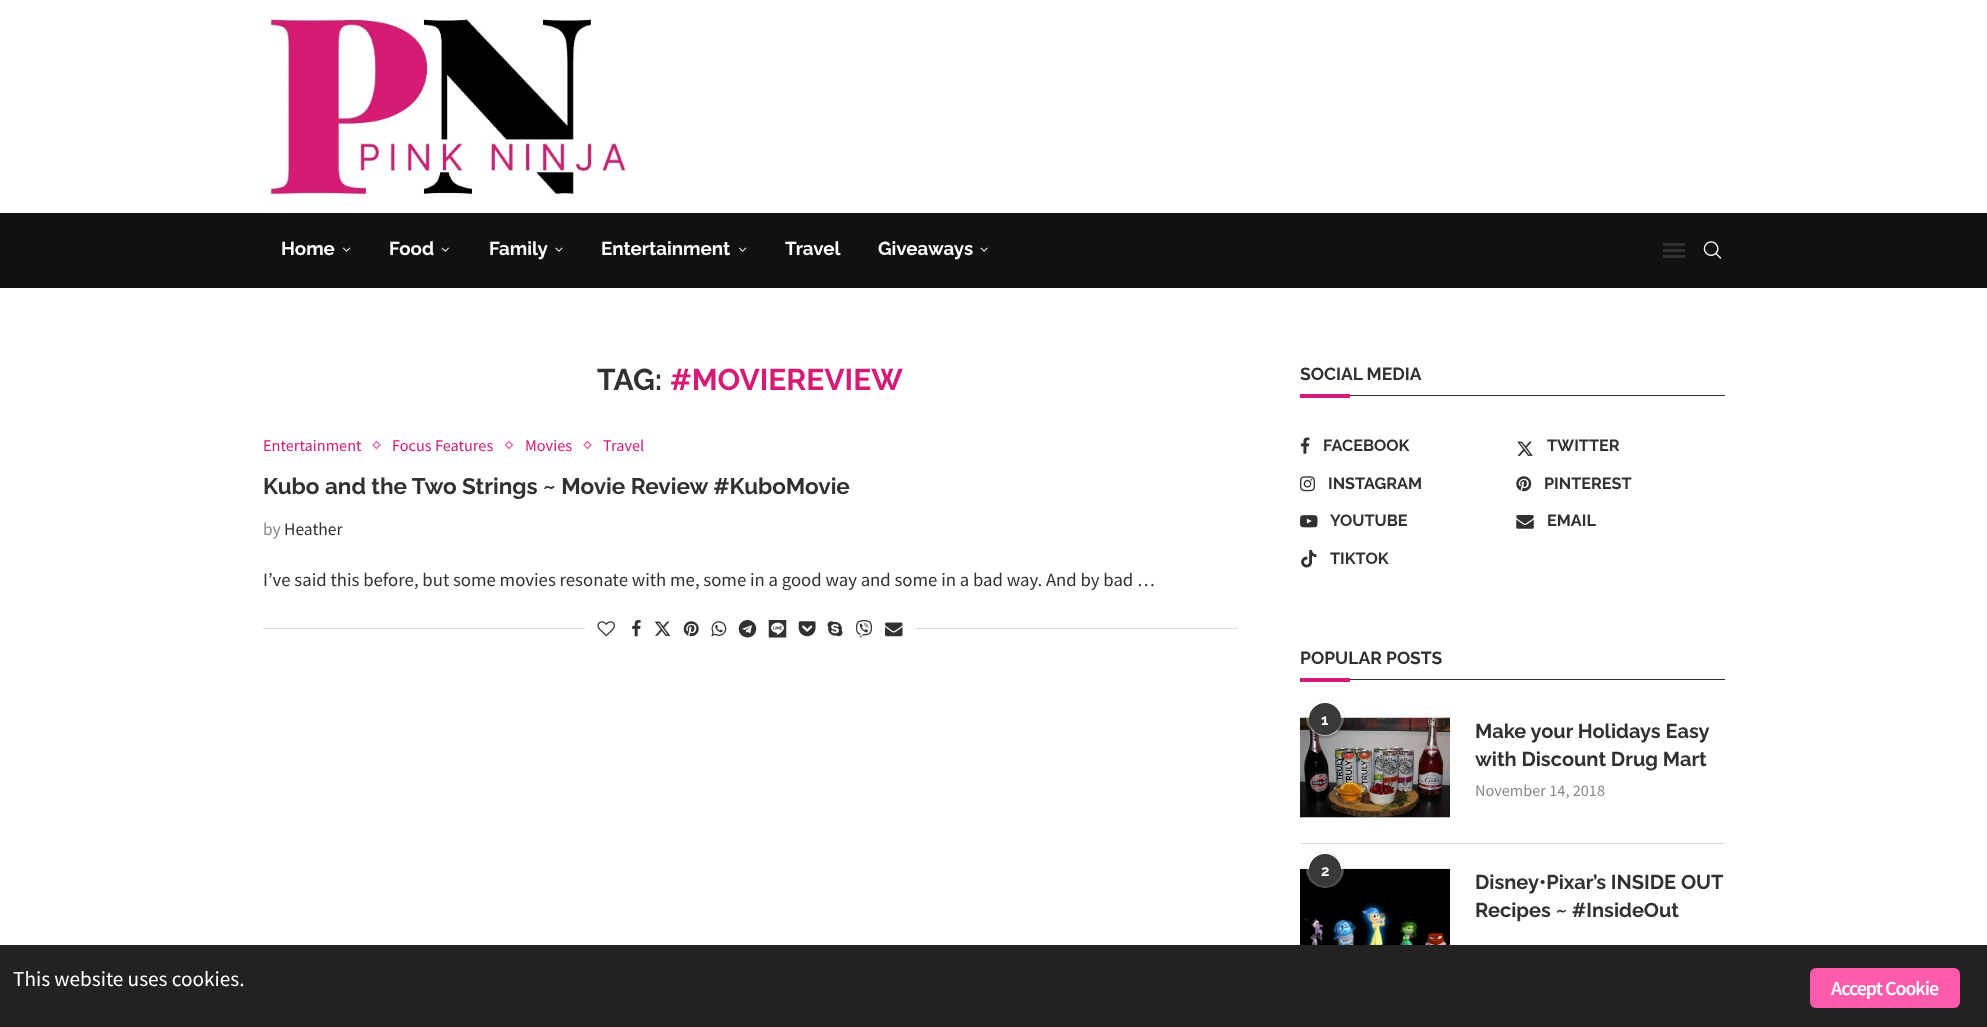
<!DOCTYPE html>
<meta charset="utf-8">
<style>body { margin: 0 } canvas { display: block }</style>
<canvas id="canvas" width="1987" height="1027"></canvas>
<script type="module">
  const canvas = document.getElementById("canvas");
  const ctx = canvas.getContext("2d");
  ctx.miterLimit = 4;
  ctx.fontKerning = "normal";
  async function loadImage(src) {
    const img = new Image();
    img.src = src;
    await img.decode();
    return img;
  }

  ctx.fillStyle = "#ffffff";
  ctx.fillRect(0, 0, 1987, 1027);
  ctx.drawImage(await loadImage("img1.png"), 269, 19, 357, 177);
  ctx.fillStyle = "#111111";
  ctx.fillRect(0, 213, 1987, 75);
  ctx.font = "bold 18.75px Raleway";
  ctx.fillStyle = "#ffffff";
  ctx.fillText("Home", 281, 255);
  ctx.drawImage(await loadImage("img2.png"), 342, 247, 9, 5);
  ctx.fillText("Food", 389, 255);
  ctx.drawImage(await loadImage("img3.png"), 441, 247, 8, 5);
  ctx.fillText("Family", 489, 255);
  ctx.drawImage(await loadImage("img4.png"), 555, 247, 8, 5);
  ctx.fillText("Entertainment", 601, 255);
  ctx.drawImage(await loadImage("img5.png"), 739, 247, 8, 5);
  ctx.fillText("Travel", 785, 255);
  ctx.fillText("Giveaways", 878, 255);
  ctx.drawImage(await loadImage("img6.png"), 980, 247, 8, 5);
  ctx.fillStyle = "#313131";
  ctx.fillRect(1663, 243, 22, 3);
  ctx.fillRect(1663, 255, 22, 3);
  ctx.fillRect(1663, 249, 22, 3);
  ctx.drawImage(await loadImage("img7.png"), 1703, 241, 19, 18);
  ctx.font = "bold 30px Raleway";
  ctx.fillText("TAG:", 597, 390);
  ctx.fillStyle = "#d61b75";
  ctx.fillText("#MOVIEREVIEW", 670, 390);
  ctx.font = "16.25px Source Sans Pro";
  ctx.fillText("Entertainment", 263, 451);
  ctx.beginPath();
  ctx.moveTo(376.5, 441.5);
  ctx.lineTo(380, 445);
  ctx.lineTo(376.5, 448.5);
  ctx.lineTo(373, 445);
  ctx.closePath();
  ctx.strokeStyle = "#e46ba5";
  ctx.lineWidth = 1.3;
  ctx.stroke();
  ctx.fillText("Focus Features", 392, 451);
  ctx.beginPath();
  ctx.moveTo(509, 441.5);
  ctx.lineTo(512.5, 445);
  ctx.lineTo(509, 448.5);
  ctx.lineTo(505.5, 445);
  ctx.closePath();
  ctx.stroke();
  ctx.fillText("Movies", 525, 451);
  ctx.beginPath();
  ctx.moveTo(587.5, 441.5);
  ctx.lineTo(591, 445);
  ctx.lineTo(587.5, 448.5);
  ctx.lineTo(584, 445);
  ctx.closePath();
  ctx.stroke();
  ctx.fillText("Travel", 603, 451);
  ctx.font = "bold 22.5px Raleway";
  ctx.fillStyle = "#313131";
  ctx.fillText("Kubo and the Two Strings ~ Movie Review #KuboMovie", 263, 494);
  ctx.font = "17.5px Source Sans Pro";
  ctx.fillStyle = "#888888";
  ctx.fillText("by", 263, 535);
  ctx.fillStyle = "#313131";
  ctx.fillText("Heather", 284, 535);
  ctx.font = "18.75px Source Sans Pro";
  ctx.fillText("I’ve said this before, but some movies resonate with me, some in a good way and some in a bad way. And by bad …", 263, 586);
  ctx.fillStyle = "#dedede";
  ctx.fillRect(263, 628, 975, 1);
  ctx.fillStyle = "#ffffff";
  ctx.fillRect(585, 628, 330, 1);
  ctx.drawImage(await loadImage("img8.png"), 597, 621, 18, 16);
  ctx.drawImage(await loadImage("img9.png"), 632, 620, 9, 17);
  ctx.drawImage(await loadImage("img10.png"), 654, 621, 17, 15);
  ctx.drawImage(await loadImage("img11.png"), 683, 621, 16, 16);
  ctx.drawImage(await loadImage("img12.png"), 711, 621, 16, 16);
  ctx.drawImage(await loadImage("img13.png"), 738, 620, 19, 18);
  ctx.drawImage(await loadImage("img14.png"), 768, 620, 19, 18);
  ctx.drawImage(await loadImage("img15.png"), 798, 621, 18, 16);
  ctx.drawImage(await loadImage("img16.png"), 827, 621, 16, 16);
  ctx.drawImage(await loadImage("img17.png"), 856, 620, 16, 18);
  ctx.drawImage(await loadImage("img18.png"), 885, 622, 18, 15);
  ctx.fillStyle = "#313131";
  ctx.fillRect(1350, 395, 375, 1);
  ctx.font = "bold 17.5px Raleway";
  ctx.fillText("SOCIAL MEDIA", 1300, 380);
  ctx.fillStyle = "#d61b75";
  ctx.fillRect(1300, 394, 50, 4);
  ctx.drawImage(await loadImage("img19.png"), 1300, 437, 10, 17);
  ctx.font = "bold 16.25px Raleway";
  ctx.fillStyle = "#313131";
  ctx.fillText("FACEBOOK", 1323, 451);
  ctx.drawImage(await loadImage("img20.png"), 1517, 441, 16, 15);
  ctx.fillText("TWITTER", 1547, 451);
  ctx.drawImage(await loadImage("img21.png"), 1300, 476, 15, 16);
  ctx.fillText("INSTAGRAM", 1328, 489);
  ctx.drawImage(await loadImage("img22.png"), 1516, 476, 16, 16);
  ctx.fillText("PINTEREST", 1544, 489);
  ctx.drawImage(await loadImage("img23.png"), 1300, 515, 18, 13);
  ctx.fillText("YOUTUBE", 1330, 526);
  ctx.drawImage(await loadImage("img24.png"), 1516, 515, 18, 14);
  ctx.fillText("EMAIL", 1547, 526);
  ctx.drawImage(await loadImage("img25.png"), 1301, 550, 16, 18);
  ctx.fillText("TIKTOK", 1330, 564);
  ctx.fillRect(1350, 679, 375, 1);
  ctx.font = "bold 17.5px Raleway";
  ctx.fillText("POPULAR POSTS", 1300, 664);
  ctx.fillStyle = "#d61b75";
  ctx.fillRect(1300, 678, 50, 4);
  ctx.fillStyle = "#dedede";
  ctx.fillRect(1300, 843, 425, 1);
  ctx.fillStyle = "#f5f5f5";
  ctx.fillRect(1300, 817, 150, 1);
  ctx.drawImage(await loadImage("img26.png"), 1300, 717, 150, 101);
  ctx.save();
  ctx.beginPath();
  ctx.moveTo(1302, 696);
  ctx.lineTo(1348, 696);
  ctx.lineTo(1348, 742);
  ctx.lineTo(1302, 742);
  ctx.closePath();
  ctx.moveTo(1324.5, 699);
  ctx.lineTo(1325.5, 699);
  ctx.bezierCurveTo(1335.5, 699, 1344, 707.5, 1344, 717.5);
  ctx.bezierCurveTo(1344, 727.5, 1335.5, 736, 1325.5, 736);
  ctx.lineTo(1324.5, 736);
  ctx.bezierCurveTo(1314.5, 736, 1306, 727.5, 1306, 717.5);
  ctx.bezierCurveTo(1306, 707.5, 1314.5, 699, 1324.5, 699);
  ctx.closePath();
  ctx.clip("evenodd");
  ctx.fillStyle = "rgba(0, 0, 0, 0.25)";
  ctx.filter = "blur(1px)";
  ctx.beginPath();
  ctx.roundRect(1306, 700, 38, 38, 19);
  ctx.fill();
  ctx.filter = "none";
  ctx.restore();
  ctx.fillStyle = "rgba(255, 255, 255, 0.3)";
  ctx.beginPath();
  ctx.roundRect(1306, 699, 38, 37, 18.5);
  ctx.fill();
  ctx.fillStyle = "#383838";
  ctx.beginPath();
  ctx.arc(1325, 719, 16, 0, Math.PI * 2);
  ctx.fill();
  ctx.font = "bold 15px Raleway";
  ctx.fillStyle = "#ffffff";
  ctx.fillText("1", 1321, 725);
  ctx.font = "bold 20px Raleway";
  ctx.fillStyle = "#313131";
  ctx.fillText("Make your Holidays Easy", 1475, 738);
  ctx.fillText("with Discount Drug Mart", 1475, 766);
  ctx.font = "16.25px Source Sans Pro";
  ctx.fillStyle = "#888888";
  ctx.fillText("November 14, 2018", 1475, 796);
  ctx.drawImage(await loadImage("img27.png"), 1300, 868, 150, 77);
  ctx.save();
  ctx.beginPath();
  ctx.moveTo(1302, 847);
  ctx.lineTo(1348, 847);
  ctx.lineTo(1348, 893);
  ctx.lineTo(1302, 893);
  ctx.closePath();
  ctx.moveTo(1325, 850);
  ctx.bezierCurveTo(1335.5, 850, 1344, 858.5, 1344, 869);
  ctx.bezierCurveTo(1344, 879.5, 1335.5, 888, 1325, 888);
  ctx.bezierCurveTo(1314.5, 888, 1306, 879.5, 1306, 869);
  ctx.bezierCurveTo(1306, 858.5, 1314.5, 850, 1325, 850);
  ctx.closePath();
  ctx.clip("evenodd");
  ctx.fillStyle = "rgba(0, 0, 0, 0.25)";
  ctx.filter = "blur(1px)";
  ctx.beginPath();
  ctx.roundRect(1306, 851, 38, 38, 19);
  ctx.fill();
  ctx.filter = "none";
  ctx.restore();
  ctx.fillStyle = "rgba(255, 255, 255, 0.3)";
  ctx.beginPath();
  ctx.arc(1325, 869, 19, 0, Math.PI * 2);
  ctx.fill();
  ctx.fillStyle = "#383838";
  ctx.beginPath();
  ctx.arc(1325, 870, 16, 0, Math.PI * 2);
  ctx.fill();
  ctx.font = "bold 15px Raleway";
  ctx.fillStyle = "#ffffff";
  ctx.fillText("2", 1321, 876);
  ctx.font = "bold 20px Raleway";
  ctx.fillStyle = "#313131";
  ctx.fillText("Disney•Pixar’s INSIDE OUT", 1475, 889);
  ctx.fillText("Recipes ~ #InsideOut", 1475, 917);
  ctx.fillStyle = "#222222";
  ctx.fillRect(0, 945, 1987, 82);
  ctx.font = "21.25px Source Sans Pro";
  ctx.fillStyle = "#ffffff";
  ctx.fillText("This website uses cookies.", 13, 986);
  ctx.fillStyle = "#fe5bac";
  ctx.beginPath();
  ctx.roundRect(1810, 968, 150, 40, 6);
  ctx.fill();
  ctx.letterSpacing = "-1px";
  ctx.font = "600 20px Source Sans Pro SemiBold";
  ctx.fillStyle = "#ffffff";
  ctx.fillText("Accept Cookie", 1831, 995);
</script>
